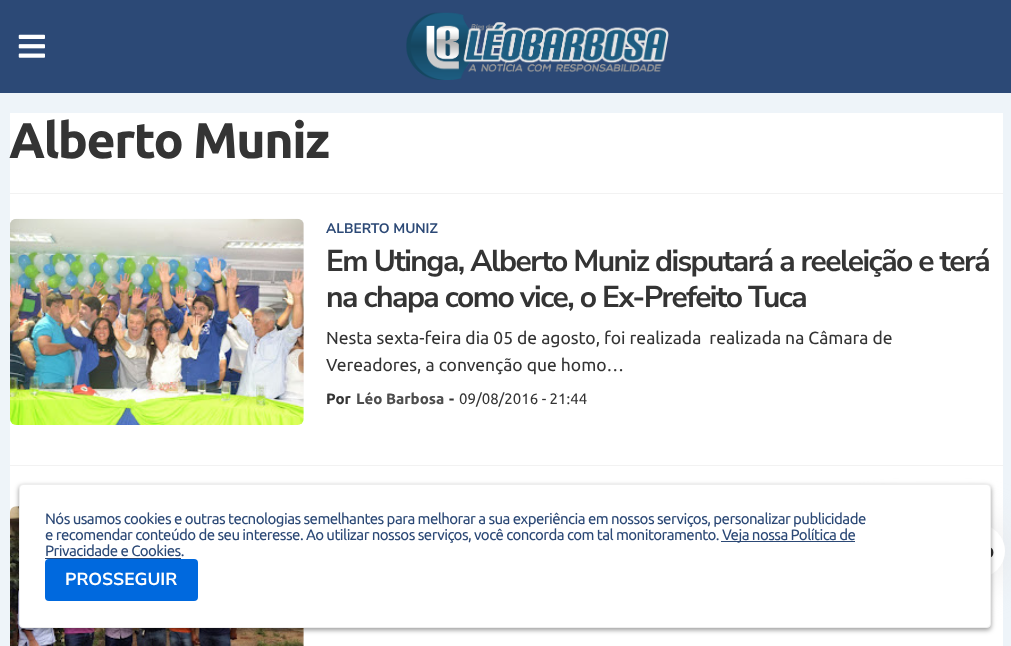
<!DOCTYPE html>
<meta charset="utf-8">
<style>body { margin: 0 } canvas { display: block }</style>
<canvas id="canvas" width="1011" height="646"></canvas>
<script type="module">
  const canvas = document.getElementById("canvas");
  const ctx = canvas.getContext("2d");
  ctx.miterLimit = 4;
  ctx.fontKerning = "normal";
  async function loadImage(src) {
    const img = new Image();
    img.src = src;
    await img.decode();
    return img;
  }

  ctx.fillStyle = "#eef4f9";
  ctx.fillRect(0, 0, 1011, 646);
  ctx.fillStyle = "#2c4976";
  ctx.fillRect(0, 0, 1011, 93);
  ctx.drawImage(await loadImage("img1.png"), 18, 34, 27, 24);
  ctx.drawImage(await loadImage("img2.png"), 406, 12, 263, 68);
  ctx.fillStyle = "#ffffff";
  ctx.fillRect(10, 113, 993, 533);
  ctx.fillStyle = "#f2f2f2";
  ctx.fillRect(10, 193, 993, 1);
  ctx.letterSpacing = "-1.5px";
  ctx.font = "bold 50px Ubuntu";
  ctx.fillStyle = "#343434";
  ctx.fillText("Alberto Muniz", 9, 158);
  ctx.fillStyle = "#f2f2f2";
  ctx.fillRect(10, 465, 993, 1);
  ctx.fillStyle = "#fafafa";
  ctx.beginPath();
  ctx.roundRect(10, 219, 294, 206, 6);
  ctx.fill();
  ctx.drawImage(await loadImage("img3.png"), 10, 218, 294, 207);
  ctx.letterSpacing = "0px";
  ctx.font = "bold 13.75px Nunito Sans";
  ctx.fillStyle = "#2c4976";
  ctx.fillText("ALBERTO MUNIZ", 326, 233);
  ctx.letterSpacing = "-1.55px";
  ctx.font = "bold 30px Nunito Sans";
  ctx.fillStyle = "#343434";
  ctx.fillText("Em Utinga, Alberto Muniz disputará a reeleição e terá", 326, 271);
  ctx.fillText("na chapa como vice, o Ex-Prefeito Tuca", 326, 307);
  ctx.letterSpacing = "0px";
  ctx.font = "17.5px Ubuntu";
  ctx.fillText("Nesta sexta-feira dia 05 de agosto, foi realizada  realizada na Câmara de", 326, 344);
  ctx.fillText("Vereadores, a convenção que homo…", 326, 371);
  ctx.font = "bold 15px Ubuntu";
  ctx.fillText("Por", 326, 404);
  ctx.fillStyle = "#4d4d4d";
  ctx.fillText("Léo Barbosa", 356, 404);
  ctx.fillStyle = "#343434";
  ctx.fillText("-", 449, 404);
  ctx.font = "15px Ubuntu";
  ctx.fillText("09/08/2016 - 21:44", 459, 404);
  ctx.fillStyle = "#fafafa";
  ctx.beginPath();
  ctx.roundRect(10, 506, 294, 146, 6);
  ctx.fill();
  ctx.drawImage(await loadImage("img4.png"), 10, 506, 294, 140);
  ctx.fillStyle = "#e4e4e5";
  ctx.filter = "blur(19px)";
  ctx.beginPath();
  ctx.roundRect(860, 524, 145, 54, 27);
  ctx.fill();
  ctx.filter = "none";
  ctx.fillStyle = "#ffffff";
  ctx.beginPath();
  ctx.roundRect(860, 524, 145, 54, 27);
  ctx.fill();
  ctx.drawImage(await loadImage("img5.png"), 991, 547, 3, 11);
  ctx.fillStyle = "rgba(0, 0, 0, 0.4)";
  ctx.filter = "blur(2.5px)";
  ctx.beginPath();
  ctx.roundRect(19, 486, 972, 144, 4);
  ctx.fill();
  ctx.filter = "none";
  ctx.fillStyle = "#ffffff";
  ctx.beginPath();
  ctx.roundRect(19.5, 484.5, 971, 143, 3.5);
  ctx.fill();
  ctx.strokeStyle = "#eeeeee";
  ctx.stroke();
  ctx.letterSpacing = "-0.56px";
  ctx.fillStyle = "#2c4976";
  ctx.fillText("Nós usamos cookies e outras tecnologias semelhantes para melhorar a sua experiência em nossos serviços, personalizar publicidade", 45, 524);
  ctx.fillText("e recomendar conteúdo de seu interesse. Ao utilizar nossos serviços, você concorda com tal monitoramento.", 45, 540);
  ctx.fillRect(721, 541, 134, 1);
  ctx.fillText("Veja nossa Política de", 722, 540);
  ctx.fillText("Privacidade e Cookies.", 45, 556);
  ctx.fillRect(45, 558, 136, 1);
  ctx.fillStyle = "#0069de";
  ctx.beginPath();
  ctx.roundRect(45, 559, 153, 42, 4);
  ctx.fill();
  ctx.letterSpacing = "0px";
  ctx.font = "bold 17.5px Nunito Sans";
  ctx.fillStyle = "#ffffff";
  ctx.fillText("PROSSEGUIR", 65, 585);
</script>
